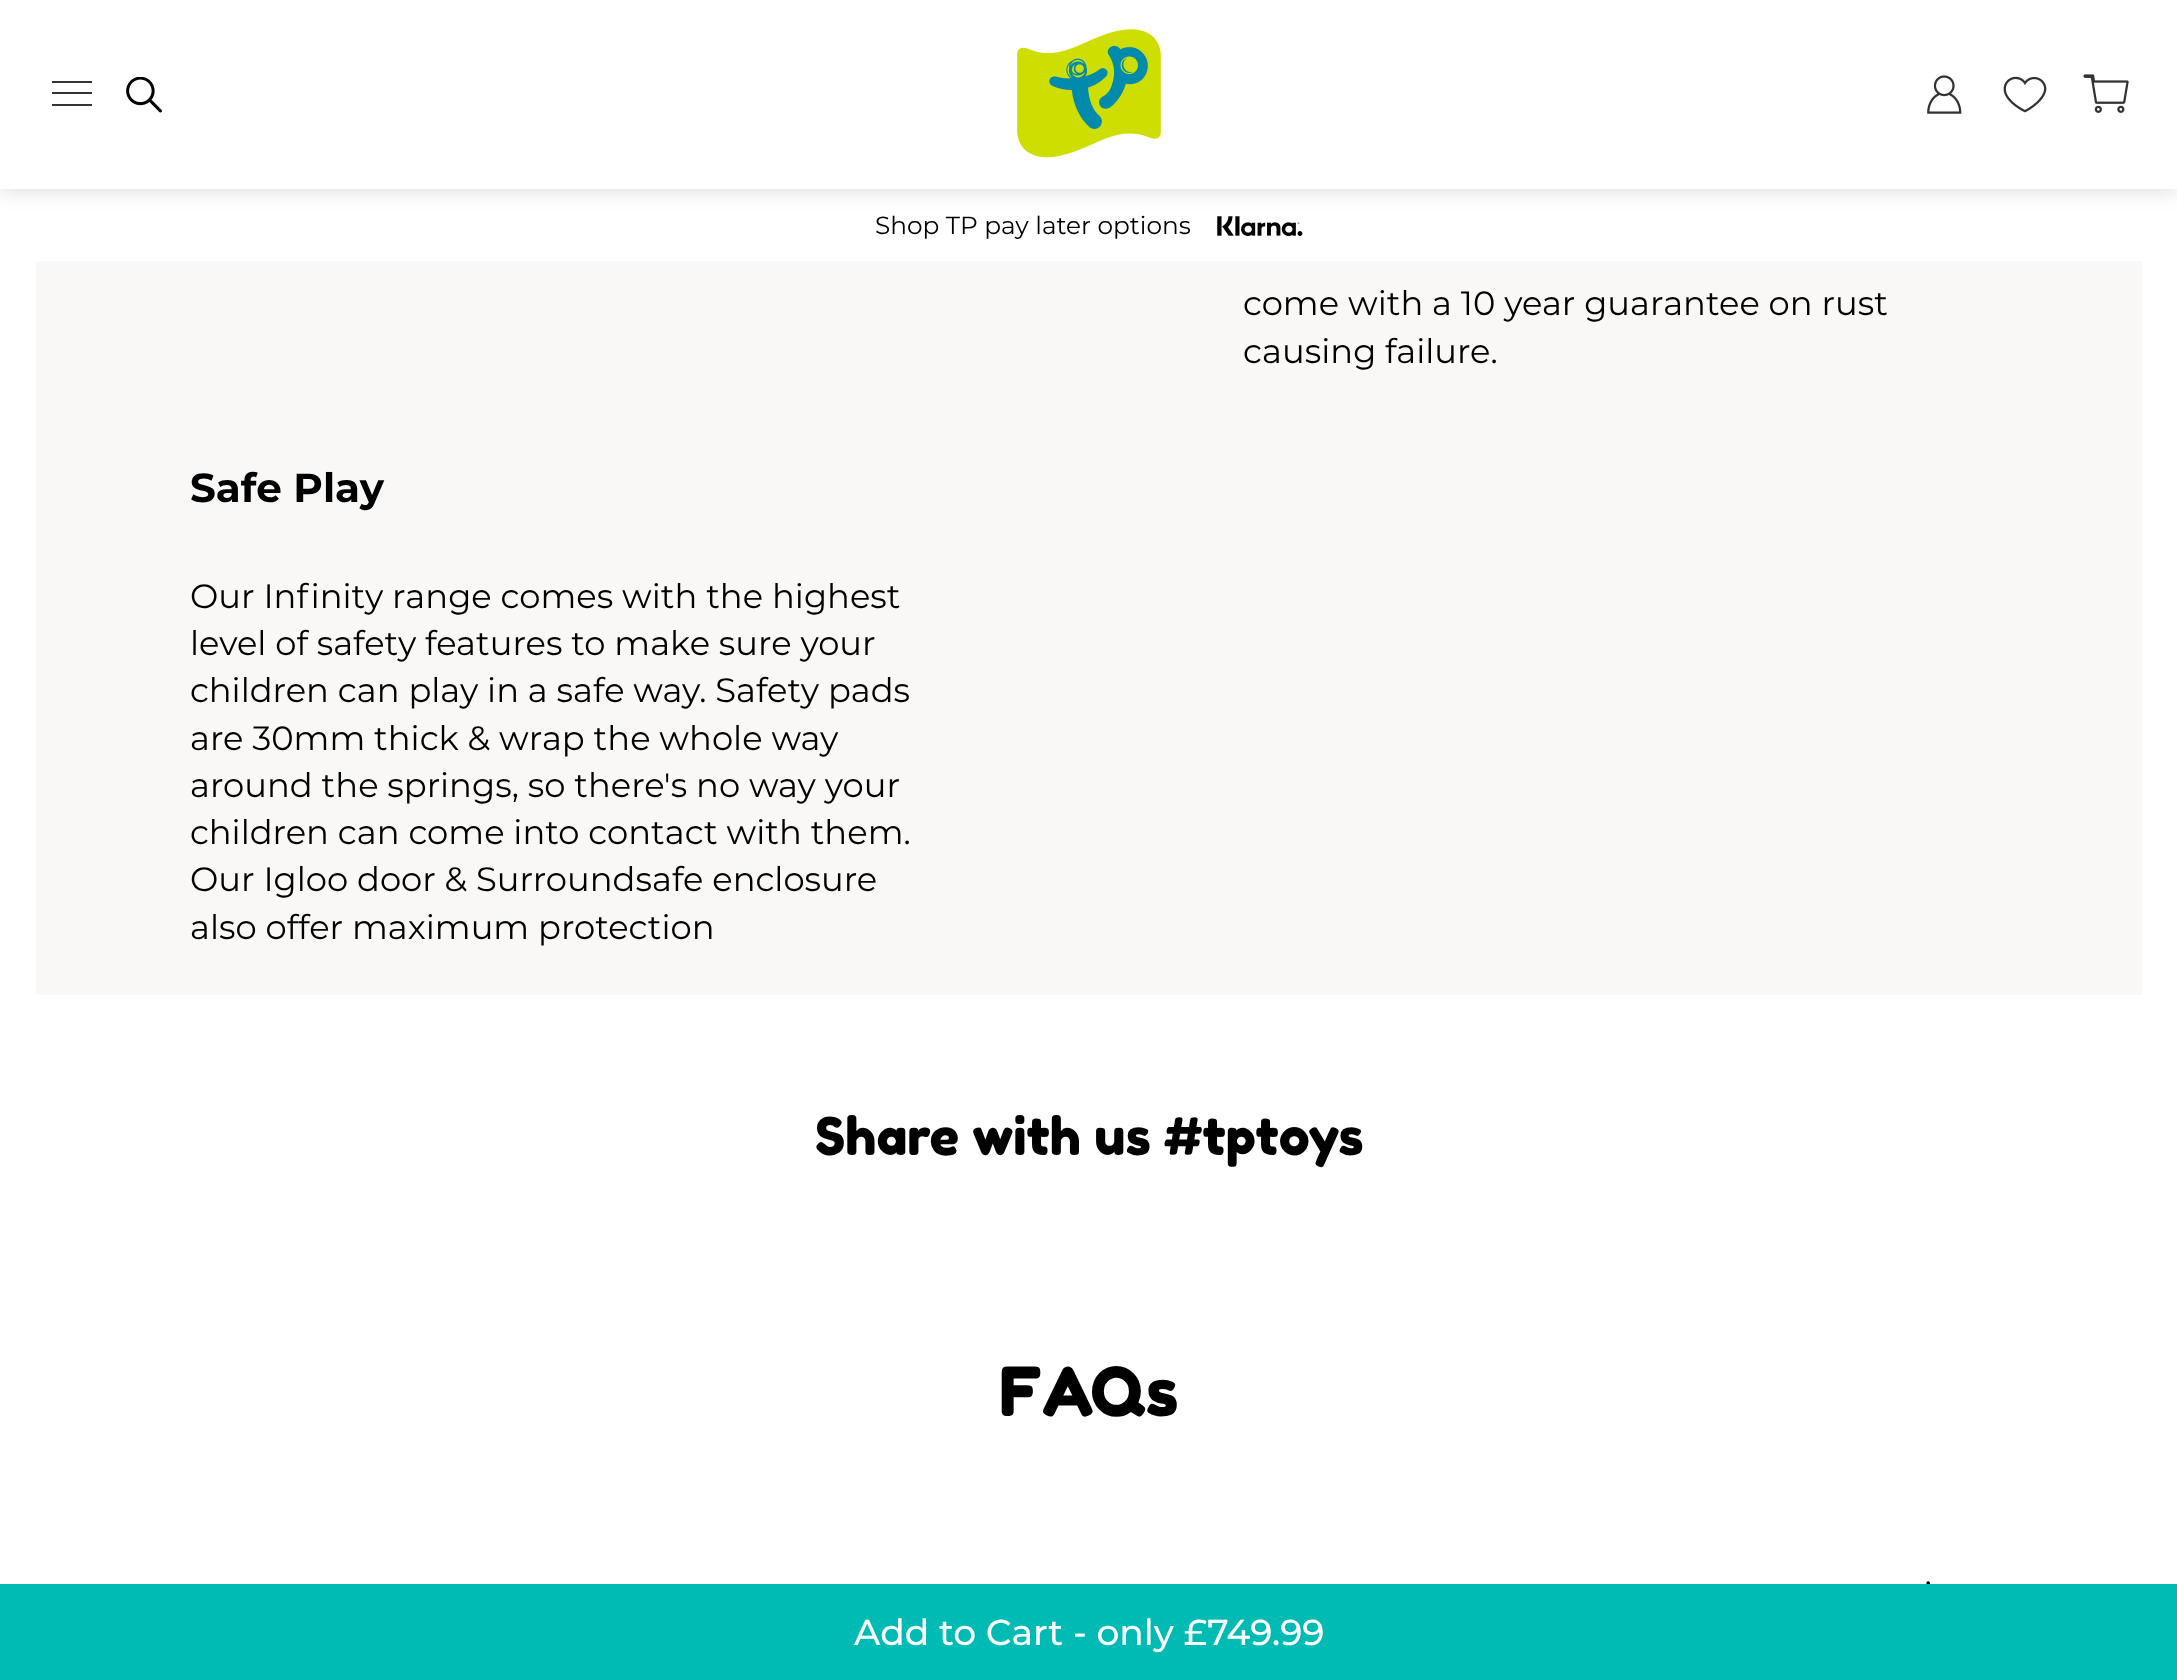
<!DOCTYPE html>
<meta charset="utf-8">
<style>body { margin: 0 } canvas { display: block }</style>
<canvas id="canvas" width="2177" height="1680"></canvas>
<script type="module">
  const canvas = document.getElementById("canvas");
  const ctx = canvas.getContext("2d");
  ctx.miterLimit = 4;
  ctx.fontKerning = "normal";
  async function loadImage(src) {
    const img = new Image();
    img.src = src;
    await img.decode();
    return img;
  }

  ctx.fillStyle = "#ffffff";
  ctx.fillRect(0, 0, 2177, 1680);
  ctx.drawImage(await loadImage("img6.png"), 1217, 216, 86, 20);
  ctx.fillStyle = "rgba(0, 0, 0, 0.16)";
  ctx.filter = "blur(11px)";
  ctx.beginPath();
  ctx.rect(0, 0, 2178, 189);
  ctx.fill();
  ctx.filter = "none";
  ctx.fillStyle = "#ffffff";
  ctx.fillRect(0, 0, 2177, 189);
  ctx.fillStyle = "#333332";
  ctx.fillRect(52, 92, 40, 2);
  ctx.fillRect(52, 81, 40, 2);
  ctx.fillRect(52, 104, 40, 2);
  ctx.drawImage(await loadImage("img1.png"), 126, 77, 36, 36);
  ctx.drawImage(await loadImage("img2.png"), 1017, 29, 144, 129);
  ctx.drawImage(await loadImage("img3.png"), 1927, 75, 35, 39);
  ctx.drawImage(await loadImage("img4.png"), 2003, 76, 44, 37);
  ctx.drawImage(await loadImage("img5.png"), 2083, 74, 46, 39);
  ctx.font = "24.75px Montserrat";
  ctx.fillStyle = "#000000";
  ctx.fillText("Shop TP pay later options", 875, 234);
  ctx.fillStyle = "#f9f8f6";
  ctx.fillRect(36, 261, 2106, 734);
  ctx.font = "33.75px Montserrat";
  ctx.fillStyle = "#000000";
  ctx.fillText("come with a 10 year guarantee on rust", 1243, 315);
  ctx.fillText("causing failure.", 1243, 363);
  ctx.font = "bold 40.5px Montserrat";
  ctx.fillText("Safe Play", 190, 502);
  ctx.font = "33.75px Montserrat";
  ctx.fillText("Our Infinity range comes with the highest", 190, 608);
  ctx.fillText("level of safety features to make sure your", 190, 655);
  ctx.fillText("children can play in a safe way. Safety pads", 190, 702);
  ctx.fillText("are 30mm thick & wrap the whole way", 190, 750);
  ctx.fillText("around the springs, so there's no way your", 190, 797);
  ctx.fillText("children can come into contact with them.", 190, 844);
  ctx.fillText("Our Igloo door & Surroundsafe enclosure", 190, 891);
  ctx.fillText("also offer maximum protection", 190, 939);
  ctx.font = "51.75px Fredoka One";
  ctx.fillText("Share with us #tptoys", 815, 1155);
  ctx.font = "67.5px Fredoka One";
  ctx.fillText("FAQs", 999, 1416);
  ctx.drawImage(await loadImage("img7.png"), 1926, 1581, 4, 3);
  ctx.fillStyle = "#00bbb4";
  ctx.fillRect(0, 1584, 2177, 96);
  ctx.font = "500 36px Montserrat";
  ctx.fillStyle = "#ffffff";
  ctx.fillText("Add to Cart - only £749.99", 854, 1645);
</script>
